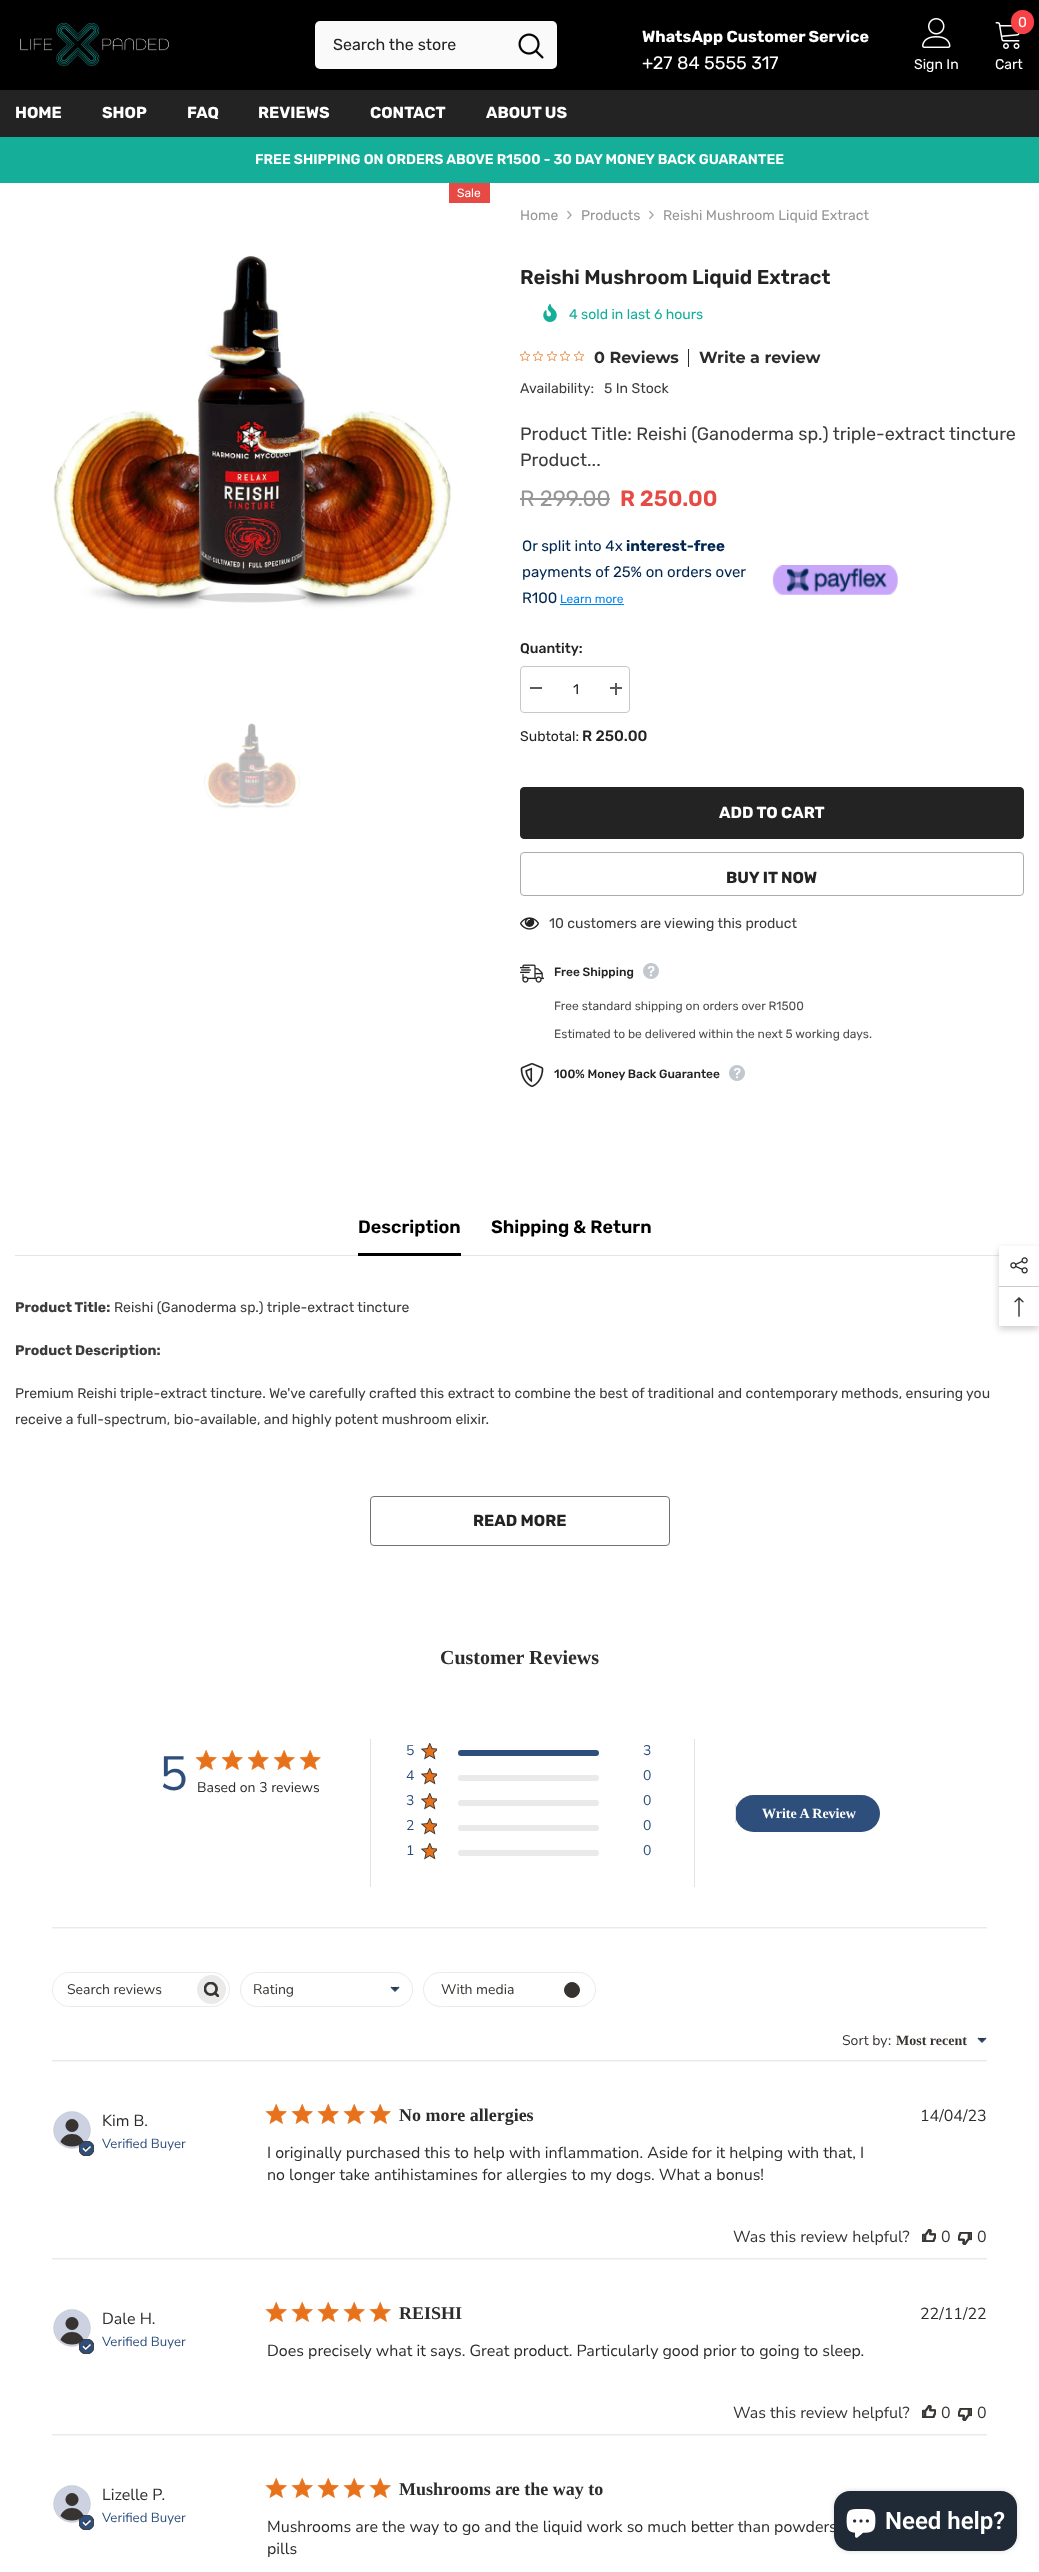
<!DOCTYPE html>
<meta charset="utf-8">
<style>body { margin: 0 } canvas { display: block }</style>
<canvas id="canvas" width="1039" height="2572"></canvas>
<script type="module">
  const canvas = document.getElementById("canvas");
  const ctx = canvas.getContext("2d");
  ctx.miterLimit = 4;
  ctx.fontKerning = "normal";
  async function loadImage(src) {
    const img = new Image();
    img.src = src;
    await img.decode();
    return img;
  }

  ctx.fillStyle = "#ffffff";
  ctx.fillRect(0, 0, 1039, 2572);
  ctx.fillStyle = "#000000";
  ctx.fillRect(0, 0, 1039, 90);
  ctx.drawImage(await loadImage("img1.png"), 20, 19, 149, 48);
  ctx.fillStyle = "#fafafa";
  ctx.beginPath();
  ctx.roundRect(315, 21, 242, 48, 5);
  ctx.fill();
  ctx.font = "16px Rubik";
  ctx.fillStyle = "#232323";
  ctx.fillText("Search the store", 333, 50);
  ctx.drawImage(await loadImage("img2.png"), 518, 33, 26, 26);
  ctx.font = "bold 16px Rubik";
  ctx.fillStyle = "#ffffff";
  ctx.fillText("WhatsApp Customer Service", 642, 42);
  ctx.font = "18px Rubik";
  ctx.fillText("+27 84 5555 317", 642, 69);
  ctx.drawImage(await loadImage("img3.png"), 995, 22, 25, 27);
  ctx.fillStyle = "#f84248";
  ctx.beginPath();
  ctx.roundRect(1011, 10, 23, 24, 11.5);
  ctx.fill();
  ctx.font = "14px Rubik";
  ctx.fillStyle = "#ffffff";
  ctx.fillText("0", 1018, 27);
  ctx.fillText("Cart", 995, 69);
  ctx.drawImage(await loadImage("img4.png"), 922, 18, 29, 30);
  ctx.fillText("Sign In", 914, 69);
  ctx.fillStyle = "#232323";
  ctx.fillRect(0, 90, 1039, 47);
  ctx.font = "bold 16px Rubik";
  ctx.fillStyle = "#ffffff";
  ctx.fillText("HOME", 15, 118);
  ctx.fillText("SHOP", 102, 118);
  ctx.fillText("FAQ", 187, 118);
  ctx.fillText("REVIEWS", 258, 118);
  ctx.fillText("CONTACT", 370, 118);
  ctx.fillText("ABOUT US", 486, 118);
  ctx.fillStyle = "#14ae99";
  ctx.fillRect(0, 137, 1039, 46);
  ctx.font = "600 14px Rubik";
  ctx.fillStyle = "#ffffff";
  ctx.fillText("FREE SHIPPING ON ORDERS ABOVE R1500 - 30 DAY MONEY BACK GUARANTEE", 255, 164);
  ctx.fillStyle = "#e74a45";
  ctx.fillRect(449, 183, 41, 20);
  ctx.font = "12px Rubik";
  ctx.fillStyle = "#ffffff";
  ctx.fillText("Sale", 457, 197);
  ctx.drawImage(await loadImage("img5.png"), 53, 255, 398, 354);
  ctx.drawImage(await loadImage("img6.png"), 204, 723, 96, 86);
  ctx.font = "14px Rubik";
  ctx.fillStyle = "#969696";
  ctx.fillText("Home", 520, 220);
  ctx.drawImage(await loadImage("img7.png"), 567, 210, 5, 10);
  ctx.fillText("Products", 581, 220);
  ctx.drawImage(await loadImage("img7.png"), 649, 210, 5, 10);
  ctx.fillText("Reishi Mushroom Liquid Extract", 663, 220);
  ctx.font = "600 20px Rubik";
  ctx.fillStyle = "#232323";
  ctx.fillText("Reishi Mushroom Liquid Extract", 520, 284);
  ctx.drawImage(await loadImage("img8.png"), 543, 304, 14, 18);
  ctx.font = "14px Rubik";
  ctx.fillStyle = "#14ae99";
  ctx.fillText("4 sold in last 6 hours", 569, 319);
  ctx.drawImage(await loadImage("img9.png"), 520, 351, 10, 10);
  ctx.drawImage(await loadImage("img9.png"), 533, 351, 10, 10);
  ctx.drawImage(await loadImage("img9.png"), 547, 351, 10, 10);
  ctx.drawImage(await loadImage("img9.png"), 560, 351, 10, 10);
  ctx.drawImage(await loadImage("img9.png"), 574, 351, 10, 10);
  ctx.font = "bold 16px Montserrat";
  ctx.fillStyle = "#2c2c2c";
  ctx.fillText("0 Reviews", 594, 363);
  ctx.fillRect(688, 349, 1, 18);
  ctx.fillText("Write a review", 699, 363);
  ctx.font = "14px Rubik";
  ctx.fillStyle = "#3c3c3c";
  ctx.fillText("Availability:", 520, 393);
  ctx.fillText("5 In Stock", 604, 393);
  ctx.font = "18px Rubik";
  ctx.fillText("Product Title: Reishi (Ganoderma sp.) triple-extract tincture", 520, 440);
  ctx.fillText("Product...", 520, 466);
  ctx.font = "22px Rubik";
  ctx.fillStyle = "#969696";
  ctx.fillText("R 299.00", 520, 506);
  ctx.fillRect(520, 498, 90, 2);
  ctx.font = "600 22px Rubik";
  ctx.fillStyle = "#e74a45";
  ctx.fillText("R 250.00", 620, 506);
  ctx.font = "15px Rubik";
  ctx.fillStyle = "#002751";
  ctx.fillText("Or split into 4x", 522, 551);
  ctx.font = "bold 15px Rubik";
  ctx.fillText("interest-free", 626, 551);
  ctx.font = "15px Rubik";
  ctx.fillText("payments of 25% on orders over", 522, 577);
  ctx.fillText("R100", 522, 603);
  ctx.font = "12px Rubik";
  ctx.fillStyle = "#0086ef";
  ctx.fillText("Learn more", 560, 603);
  ctx.fillRect(560, 604, 64, 1);
  ctx.drawImage(await loadImage("img10.png"), 772, 565, 126, 30);
  ctx.font = "500 14px Rubik";
  ctx.fillStyle = "#232323";
  ctx.fillText("Quantity:", 520, 653);
  ctx.beginPath();
  ctx.roundRect(520.5, 666.5, 109, 46, 3.5);
  ctx.strokeStyle = "#c7c7c7";
  ctx.stroke();
  ctx.fillStyle = "#5a5a5a";
  ctx.fillRect(530, 687, 12, 2);
  ctx.font = "14px Rubik";
  ctx.fillStyle = "#232323";
  ctx.fillText("1", 573, 694);
  ctx.fillStyle = "#5a5a5a";
  ctx.fillRect(610, 687, 12, 2);
  ctx.fillRect(615, 683, 2, 12);
  ctx.fillStyle = "#232323";
  ctx.fillText("Subtotal:", 520, 741);
  ctx.font = "500 15px Rubik";
  ctx.fillText("R 250.00", 582, 741);
  ctx.beginPath();
  ctx.roundRect(520.5, 787.5, 503, 51, 3.5);
  ctx.fill();
  ctx.strokeStyle = "#232323";
  ctx.stroke();
  ctx.font = "bold 16px Rubik";
  ctx.fillStyle = "#ffffff";
  ctx.fillText("ADD TO CART", 719, 818);
  ctx.beginPath();
  ctx.roundRect(520.5, 852.5, 503, 43, 3.5);
  ctx.strokeStyle = "#acacac";
  ctx.stroke();
  ctx.fillStyle = "#232323";
  ctx.fillText("BUY IT NOW", 726, 883);
  ctx.drawImage(await loadImage("img11.png"), 520, 917, 19, 13);
  ctx.font = "14px Rubik";
  ctx.fillStyle = "#3c3c3c";
  ctx.fillText("10 customers are viewing this product", 549, 928);
  ctx.drawImage(await loadImage("img12.png"), 520, 964, 24, 19);
  ctx.font = "500 12px Rubik";
  ctx.fillStyle = "#232323";
  ctx.fillText("Free Shipping", 554, 976);
  ctx.drawImage(await loadImage("img13.png"), 643, 963, 16, 16);
  ctx.font = "12px Rubik";
  ctx.fillStyle = "#4d4d4d";
  ctx.fillText("Free standard shipping on orders over R1500", 554, 1010);
  ctx.fillText("Estimated to be delivered within the next 5 working days.", 554, 1038);
  ctx.drawImage(await loadImage("img14.png"), 520, 1063, 24, 24);
  ctx.font = "500 12px Rubik";
  ctx.fillStyle = "#232323";
  ctx.fillText("100% Money Back Guarantee", 554, 1078);
  ctx.drawImage(await loadImage("img13.png"), 729, 1065, 16, 16);
  ctx.fillStyle = "#e6e6e6";
  ctx.fillRect(15, 1255, 984, 1);
  ctx.font = "600 18px Rubik";
  ctx.fillStyle = "#000000";
  ctx.fillText("Description", 358, 1233);
  ctx.fillRect(358, 1253, 103, 3);
  ctx.fillText("Shipping & Return", 491, 1233);
  ctx.font = "bold 14px Rubik";
  ctx.fillStyle = "#3c3c3c";
  ctx.fillText("Product Title:", 15, 1312);
  ctx.font = "14px Rubik";
  ctx.fillText("Reishi (Ganoderma sp.) triple-extract tincture", 114, 1312);
  ctx.font = "bold 14px Rubik";
  ctx.fillText("Product Description:", 15, 1355);
  ctx.font = "14px Rubik";
  ctx.fillText("Premium Reishi triple-extract tincture. We've carefully crafted this extract to combine the best of traditional and contemporary methods, ensuring you", 15, 1398);
  ctx.fillText("receive a full-spectrum, bio-available, and highly potent mushroom elixir.", 15, 1424);
  ctx.beginPath();
  ctx.roundRect(370.5, 1496.5, 299, 49, 3.5);
  ctx.strokeStyle = "#727272";
  ctx.stroke();
  ctx.font = "bold 16px Rubik";
  ctx.fillStyle = "#232323";
  ctx.fillText("READ MORE", 473, 1526);
  ctx.font = "bold 20px Liberation Serif";
  ctx.fillStyle = "#2c2c2c";
  ctx.fillText("Customer Reviews", 440, 1664);
  ctx.font = "200 48px Nunito Sans";
  ctx.fillStyle = "#2e4f7c";
  ctx.fillText("5", 159, 1790);
  ctx.drawImage(await loadImage("img15.png"), 196, 1750, 21, 20);
  ctx.drawImage(await loadImage("img15.png"), 222, 1750, 21, 20);
  ctx.drawImage(await loadImage("img15.png"), 248, 1750, 21, 20);
  ctx.drawImage(await loadImage("img15.png"), 274, 1750, 21, 20);
  ctx.drawImage(await loadImage("img15.png"), 300, 1750, 21, 20);
  ctx.font = "200 14px Nunito Sans";
  ctx.fillStyle = "#2c2c2c";
  ctx.fillText("Based on 3 reviews", 197, 1792);
  ctx.fillStyle = "#e3e3e3";
  ctx.fillRect(370, 1739, 1, 148);
  ctx.fillRect(694, 1739, 1, 148);
  ctx.fillStyle = "#2e4f7c";
  ctx.fillText("5", 406, 1755);
  ctx.drawImage(await loadImage("img16.png"), 421, 1743, 16, 17);
  ctx.beginPath();
  ctx.roundRect(458, 1750, 141, 6, 3);
  ctx.fill();
  ctx.fillText("3", 643, 1755);
  ctx.fillText("4", 406, 1780);
  ctx.drawImage(await loadImage("img16.png"), 421, 1768, 16, 17);
  ctx.fillStyle = "#eaeaea";
  ctx.beginPath();
  ctx.roundRect(458, 1775, 141, 6, 3);
  ctx.fill();
  ctx.fillStyle = "#2e4f7c";
  ctx.fillText("0", 643, 1780);
  ctx.fillText("3", 406, 1805);
  ctx.drawImage(await loadImage("img16.png"), 421, 1793, 16, 17);
  ctx.fillStyle = "#eaeaea";
  ctx.beginPath();
  ctx.roundRect(458, 1800, 141, 6, 3);
  ctx.fill();
  ctx.fillStyle = "#2e4f7c";
  ctx.fillText("0", 643, 1805);
  ctx.fillText("2", 406, 1830);
  ctx.drawImage(await loadImage("img16.png"), 421, 1818, 16, 17);
  ctx.fillStyle = "#eaeaea";
  ctx.beginPath();
  ctx.roundRect(458, 1825, 141, 6, 3);
  ctx.fill();
  ctx.fillStyle = "#2e4f7c";
  ctx.fillText("0", 643, 1830);
  ctx.fillText("1", 406, 1855);
  ctx.drawImage(await loadImage("img16.png"), 421, 1843, 16, 17);
  ctx.fillStyle = "#eaeaea";
  ctx.beginPath();
  ctx.roundRect(458, 1850, 141, 6, 3);
  ctx.fill();
  ctx.fillStyle = "#2e4f7c";
  ctx.fillText("0", 643, 1855);
  ctx.beginPath();
  ctx.roundRect(735, 1795, 145, 37, 18.5);
  ctx.fill();
  ctx.fillStyle = "#e3e3e3";
  ctx.fillRect(735, 1804, 1, 19);
  ctx.font = "bold 14px Liberation Serif";
  ctx.fillStyle = "#ffffff";
  ctx.fillText("Write A Review", 762, 1818);
  ctx.drawImage(await loadImage("img17.png"), 52, 1927, 935, 2);
  ctx.beginPath();
  ctx.roundRect(52.5, 1972.5, 177, 34, 17);
  ctx.strokeStyle = "#eaeaea";
  ctx.stroke();
  ctx.beginPath();
  ctx.roundRect(53, 1973, 140, 33, [16.5, 0, 0, 16.5]);
  ctx.fill();
  ctx.font = "200 14px Nunito Sans";
  ctx.fillStyle = "#373330";
  ctx.fillText("Search reviews", 67, 1994);
  ctx.fillStyle = "#eaeaea";
  ctx.beginPath();
  ctx.arc(211.5, 1989.5, 14.5, 0, Math.PI * 2);
  ctx.fill();
  ctx.drawImage(await loadImage("img18.png"), 204, 1982, 15, 15);
  ctx.beginPath();
  ctx.roundRect(240.5, 1972.5, 172, 34, 17);
  ctx.stroke();
  ctx.drawImage(await loadImage("img19.png"), 390, 1986, 10, 6);
  ctx.fillStyle = "#373330";
  ctx.fillText("Rating", 253, 1994);
  ctx.beginPath();
  ctx.roundRect(423.5, 1972.5, 172, 34, 17);
  ctx.stroke();
  ctx.fillText("With media", 441, 1994);
  ctx.beginPath();
  ctx.arc(572, 1990, 7.5, 0, Math.PI * 2);
  ctx.fill();
  ctx.strokeStyle = "#373330";
  ctx.stroke();
  ctx.fillText("Sort by", 842, 2045);
  ctx.fillText(":", 888, 2045);
  ctx.font = "bold 14px Liberation Serif";
  ctx.fillText("Most recent", 896, 2045);
  ctx.drawImage(await loadImage("img19.png"), 977, 2037, 10, 6);
  ctx.drawImage(await loadImage("img17.png"), 52, 2060, 935, 2);
  ctx.fillStyle = "#ccd2e1";
  ctx.beginPath();
  ctx.arc(72, 2130, 18.5, 0, Math.PI * 2);
  ctx.fill();
  ctx.lineWidth = 0.1;
  ctx.stroke();
  ctx.fillStyle = "#373330";
  ctx.beginPath();
  ctx.arc(72, 2125.5, 6.5, 0, Math.PI * 2);
  ctx.fill();
  ctx.stroke();
  ctx.beginPath();
  ctx.moveTo(72, 2134);
  ctx.bezierCurveTo(77.5, 2134, 82, 2137.5, 83.5, 2142);
  ctx.bezierCurveTo(77.5, 2148, 66.5, 2148, 60.5, 2142);
  ctx.bezierCurveTo(62, 2137.5, 66.5, 2134, 72, 2134);
  ctx.closePath();
  ctx.fill();
  ctx.save();
  ctx.beginPath();
  ctx.moveTo(72, 2113.5);
  ctx.bezierCurveTo(81, 2113.5, 88.5, 2121, 88.5, 2130);
  ctx.bezierCurveTo(88.5, 2139, 81, 2146.5, 72, 2146.5);
  ctx.bezierCurveTo(63, 2146.5, 55.5, 2139, 55.5, 2130);
  ctx.bezierCurveTo(55.5, 2121, 63, 2113.5, 72, 2113.5);
  ctx.closePath();
  ctx.clip();
  ctx.beginPath();
  ctx.arc(72, 2146.5, 12.5, 0, Math.PI * 2);
  ctx.stroke();
  ctx.restore();
  ctx.drawImage(await loadImage("img20.png"), 79, 2141, 15, 15);
  ctx.font = "200 16px Nunito Sans";
  ctx.fillStyle = "#2c2c2c";
  ctx.fillText("Kim B.", 102, 2126);
  ctx.font = "200 13.25px Nunito Sans";
  ctx.fillStyle = "#2e4f7c";
  ctx.fillText("Verified Buyer", 102, 2148);
  ctx.drawImage(await loadImage("img21.png"), 265, 2104, 22, 20);
  ctx.drawImage(await loadImage("img21.png"), 291, 2104, 22, 20);
  ctx.drawImage(await loadImage("img21.png"), 317, 2104, 22, 20);
  ctx.drawImage(await loadImage("img21.png"), 343, 2104, 22, 20);
  ctx.drawImage(await loadImage("img21.png"), 369, 2104, 22, 20);
  ctx.font = "bold 18px Liberation Serif";
  ctx.fillStyle = "#2c2c2c";
  ctx.fillText("No more allergies", 399, 2121);
  ctx.font = "200 16px Nunito Sans";
  ctx.fillText("I originally purchased this to help with inflammation. Aside for it helping with that, I", 267, 2158);
  ctx.fillText("no longer take antihistamines for allergies to my dogs. What a bonus!", 267, 2180);
  ctx.fillText("14/04/23", 920, 2121);
  ctx.fillStyle = "#373330";
  ctx.fillText("Was this review helpful?", 733, 2242);
  ctx.drawImage(await loadImage("img22.png"), 922, 2229, 14, 13);
  ctx.fillText("0", 941, 2242);
  ctx.drawImage(await loadImage("img23.png"), 958, 2232, 14, 13);
  ctx.fillText("0", 977, 2242);
  ctx.drawImage(await loadImage("img17.png"), 52, 2258, 935, 2);
  ctx.fillStyle = "#ccd2e1";
  ctx.beginPath();
  ctx.arc(72, 2328, 18.5, 0, Math.PI * 2);
  ctx.fill();
  ctx.stroke();
  ctx.fillStyle = "#373330";
  ctx.beginPath();
  ctx.arc(72, 2323.5, 6.5, 0, Math.PI * 2);
  ctx.fill();
  ctx.stroke();
  ctx.beginPath();
  ctx.moveTo(72, 2332);
  ctx.bezierCurveTo(77.5, 2332, 82, 2335.5, 83.5, 2340);
  ctx.bezierCurveTo(77.5, 2346, 66.5, 2346, 60.5, 2340);
  ctx.bezierCurveTo(62, 2335.5, 66.5, 2332, 72, 2332);
  ctx.closePath();
  ctx.fill();
  ctx.save();
  ctx.beginPath();
  ctx.moveTo(72, 2311.5);
  ctx.bezierCurveTo(81, 2311.5, 88.5, 2319, 88.5, 2328);
  ctx.bezierCurveTo(88.5, 2337, 81, 2344.5, 72, 2344.5);
  ctx.bezierCurveTo(63, 2344.5, 55.5, 2337, 55.5, 2328);
  ctx.bezierCurveTo(55.5, 2319, 63, 2311.5, 72, 2311.5);
  ctx.closePath();
  ctx.clip();
  ctx.beginPath();
  ctx.arc(72, 2344.5, 12.5, 0, Math.PI * 2);
  ctx.stroke();
  ctx.restore();
  ctx.drawImage(await loadImage("img20.png"), 79, 2339, 15, 15);
  ctx.fillStyle = "#2c2c2c";
  ctx.fillText("Dale H.", 102, 2324);
  ctx.font = "200 13.25px Nunito Sans";
  ctx.fillStyle = "#2e4f7c";
  ctx.fillText("Verified Buyer", 102, 2346);
  ctx.drawImage(await loadImage("img21.png"), 265, 2302, 22, 20);
  ctx.drawImage(await loadImage("img21.png"), 291, 2302, 22, 20);
  ctx.drawImage(await loadImage("img21.png"), 317, 2302, 22, 20);
  ctx.drawImage(await loadImage("img21.png"), 343, 2302, 22, 20);
  ctx.drawImage(await loadImage("img21.png"), 369, 2302, 22, 20);
  ctx.font = "bold 18px Liberation Serif";
  ctx.fillStyle = "#2c2c2c";
  ctx.fillText("REISHI", 399, 2319);
  ctx.font = "200 16px Nunito Sans";
  ctx.fillText("Does precisely what it says. Great product. Particularly good prior to going to sleep.", 267, 2356);
  ctx.fillText("22/11/22", 920, 2319);
  ctx.fillStyle = "#373330";
  ctx.fillText("Was this review helpful?", 733, 2418);
  ctx.drawImage(await loadImage("img22.png"), 922, 2405, 14, 13);
  ctx.fillText("0", 941, 2418);
  ctx.drawImage(await loadImage("img23.png"), 958, 2408, 14, 13);
  ctx.fillText("0", 977, 2418);
  ctx.drawImage(await loadImage("img17.png"), 52, 2434, 935, 2);
  ctx.fillStyle = "#ccd2e1";
  ctx.beginPath();
  ctx.arc(72, 2504, 18.5, 0, Math.PI * 2);
  ctx.fill();
  ctx.stroke();
  ctx.fillStyle = "#373330";
  ctx.beginPath();
  ctx.arc(72, 2499.5, 6.5, 0, Math.PI * 2);
  ctx.fill();
  ctx.stroke();
  ctx.beginPath();
  ctx.moveTo(72, 2508);
  ctx.bezierCurveTo(77.5, 2508, 82, 2511.5, 83.5, 2516);
  ctx.bezierCurveTo(77.5, 2522, 66.5, 2522, 60.5, 2516);
  ctx.bezierCurveTo(62, 2511.5, 66.5, 2508, 72, 2508);
  ctx.closePath();
  ctx.fill();
  ctx.save();
  ctx.beginPath();
  ctx.moveTo(72, 2487.5);
  ctx.bezierCurveTo(81, 2487.5, 88.5, 2495, 88.5, 2504);
  ctx.bezierCurveTo(88.5, 2513, 81, 2520.5, 72, 2520.5);
  ctx.bezierCurveTo(63, 2520.5, 55.5, 2513, 55.5, 2504);
  ctx.bezierCurveTo(55.5, 2495, 63, 2487.5, 72, 2487.5);
  ctx.closePath();
  ctx.clip();
  ctx.beginPath();
  ctx.arc(72, 2520.5, 12.5, 0, Math.PI * 2);
  ctx.stroke();
  ctx.restore();
  ctx.drawImage(await loadImage("img20.png"), 79, 2515, 15, 15);
  ctx.fillStyle = "#2c2c2c";
  ctx.fillText("Lizelle P.", 102, 2500);
  ctx.font = "200 13.25px Nunito Sans";
  ctx.fillStyle = "#2e4f7c";
  ctx.fillText("Verified Buyer", 102, 2522);
  ctx.drawImage(await loadImage("img21.png"), 265, 2478, 22, 20);
  ctx.drawImage(await loadImage("img21.png"), 291, 2478, 22, 20);
  ctx.drawImage(await loadImage("img21.png"), 317, 2478, 22, 20);
  ctx.drawImage(await loadImage("img21.png"), 343, 2478, 22, 20);
  ctx.drawImage(await loadImage("img21.png"), 369, 2478, 22, 20);
  ctx.font = "bold 18px Liberation Serif";
  ctx.fillStyle = "#2c2c2c";
  ctx.fillText("Mushrooms are the way to", 399, 2495);
  ctx.font = "200 16px Nunito Sans";
  ctx.fillText("Mushrooms are the way to go and the liquid work so much better than powders", 267, 2532);
  ctx.fillText("pills", 267, 2554);
  ctx.fillStyle = "rgba(0, 0, 0, 0.2)";
  ctx.filter = "blur(3.5px)";
  ctx.beginPath();
  ctx.rect(999, 1249, 40, 80);
  ctx.fill();
  ctx.filter = "none";
  ctx.fillStyle = "#ffffff";
  ctx.fillRect(999, 1246, 40, 80);
  ctx.drawImage(await loadImage("img24.png"), 1010, 1257, 18, 17);
  ctx.fillStyle = "#cccccc";
  ctx.fillRect(999, 1286, 40, 1);
  ctx.drawImage(await loadImage("img25.png"), 1014, 1297, 10, 20);
  ctx.fillStyle = "rgba(0, 0, 0, 0.15)";
  ctx.filter = "blur(2.5px)";
  ctx.beginPath();
  ctx.roundRect(834, 2491, 183, 60, 16);
  ctx.fill();
  ctx.filter = "none";
  ctx.fillStyle = "#202a36";
  ctx.beginPath();
  ctx.roundRect(834, 2491, 183, 60, 16);
  ctx.fill();
  ctx.drawImage(await loadImage("img26.png"), 846, 2509, 30, 29);
  ctx.font = "600 24px Roboto";
  ctx.fillStyle = "#ffffff";
  ctx.fillText("Need help?", 885, 2529);
</script>
